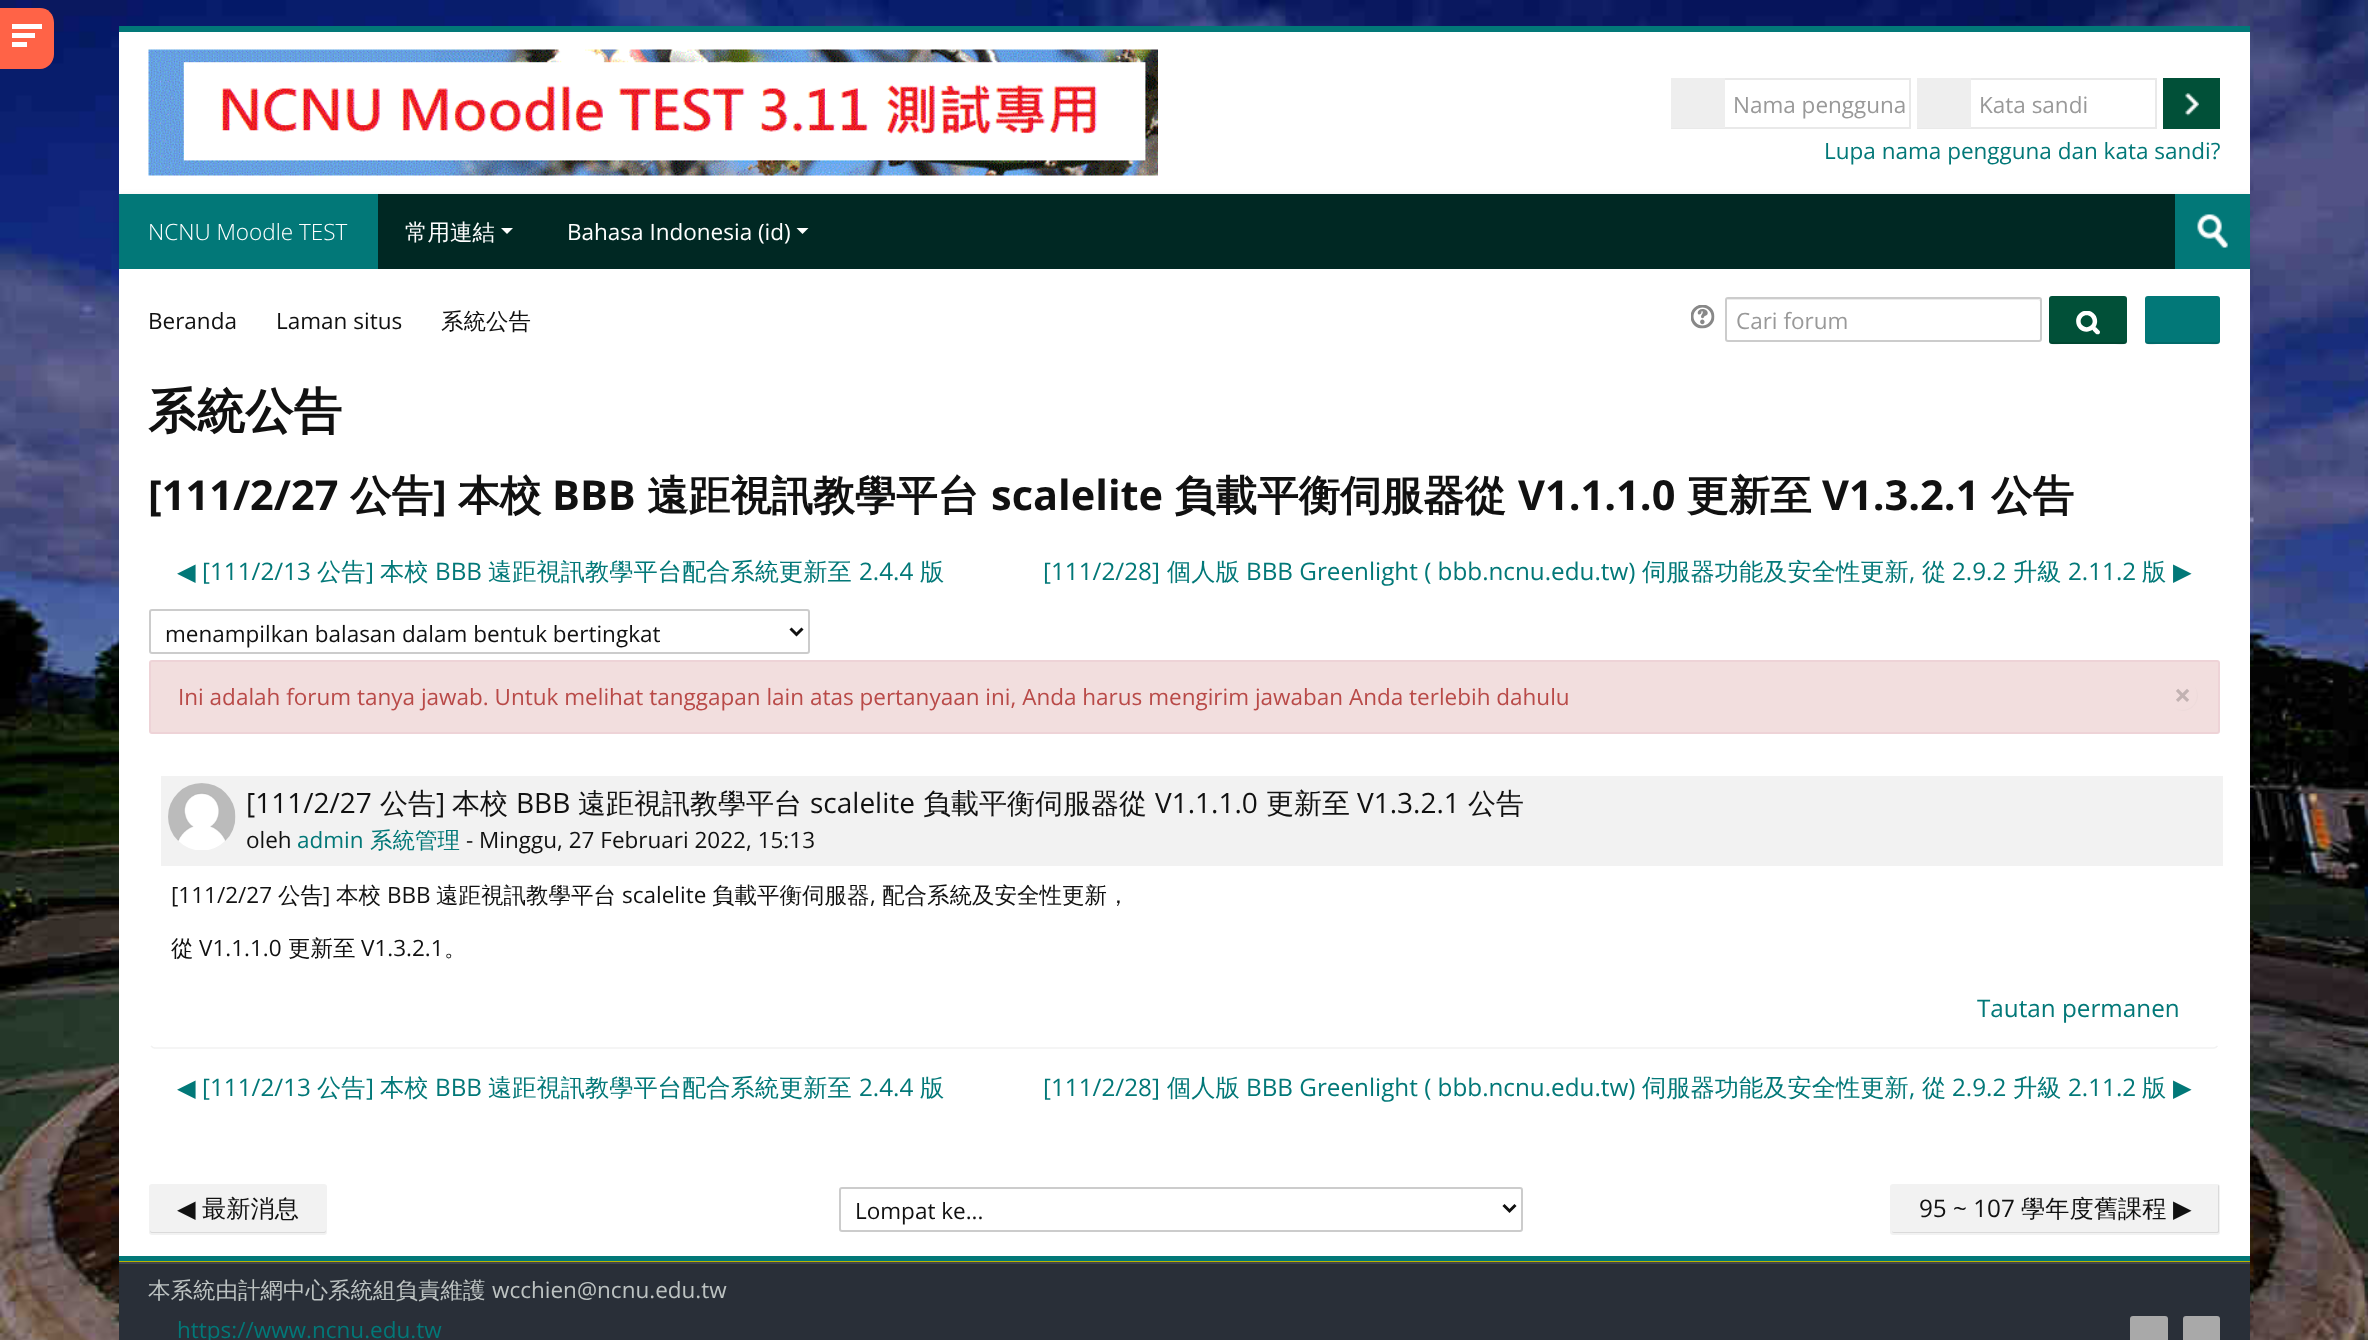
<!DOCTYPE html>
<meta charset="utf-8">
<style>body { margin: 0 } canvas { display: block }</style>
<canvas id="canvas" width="2368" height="1340"></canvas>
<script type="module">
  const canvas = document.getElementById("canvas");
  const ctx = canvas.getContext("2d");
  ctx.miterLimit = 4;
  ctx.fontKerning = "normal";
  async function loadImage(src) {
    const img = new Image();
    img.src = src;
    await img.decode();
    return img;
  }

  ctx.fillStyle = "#ffffff";
  ctx.fillRect(0, 0, 2368, 1340);
  ctx.drawImage(await loadImage("img1.png"), 0, 0, 2368, 1340);
  ctx.fillStyle = "#ff6347";
  ctx.beginPath();
  ctx.moveTo(0, 8);
  ctx.lineTo(40, 8);
  ctx.bezierCurveTo(48, 8, 54, 14, 54, 23);
  ctx.lineTo(54, 54);
  ctx.bezierCurveTo(54, 62, 48, 69, 40, 69);
  ctx.lineTo(0, 69);
  ctx.closePath();
  ctx.fill();
  ctx.fillStyle = "#ffffff";
  ctx.fillRect(12, 24, 30, 5);
  ctx.fillRect(12, 33, 23, 5);
  ctx.fillRect(12, 42, 15, 5);
  ctx.fillStyle = "#027878";
  ctx.fillRect(119, 26, 2131, 6);
  ctx.fillStyle = "#ffffff";
  ctx.fillRect(119, 32, 2131, 162);
  ctx.drawImage(await loadImage("img2.png"), 148, 49, 1010, 127);
  ctx.strokeStyle = "#e9e9e9";
  ctx.lineWidth = 2;
  ctx.strokeRect(1672, 79, 238, 49);
  ctx.fillStyle = "#eeeeee";
  ctx.fillRect(1671, 78, 54, 50);
  ctx.font = "22.5px Open Sans";
  ctx.fillStyle = "#999999";
  ctx.fillText("Nama pengguna", 1733, 113);
  ctx.strokeRect(1918, 79, 238, 49);
  ctx.fillStyle = "#eeeeee";
  ctx.fillRect(1917, 78, 54, 50);
  ctx.fillStyle = "#999999";
  ctx.fillText("Kata sandi", 1979, 113);
  ctx.fillStyle = "#015038";
  ctx.fillRect(2163, 78, 57, 51);
  ctx.drawImage(await loadImage("img3.png"), 2185, 93, 14, 23);
  ctx.fillStyle = "#027878";
  ctx.fillText("Lupa nama pengguna dan kata sandi?", 1824, 159);
  ctx.fillStyle = "rgba(0, 0, 0, 0.07)";
  ctx.filter = "blur(3px)";
  ctx.beginPath();
  ctx.rect(119, 195, 2131, 75);
  ctx.fill();
  ctx.filter = "none";
  ctx.fillStyle = "#002823";
  ctx.fillRect(378, 194, 1797, 75);
  ctx.fillStyle = "#027878";
  ctx.fillRect(119, 194, 259, 75);
  ctx.font = "300 22.5px Open Sans";
  ctx.fillStyle = "#ffffff";
  ctx.fillText("NCNU Moodle TEST", 148, 240);
  ctx.font = "500 22.5px WenQuanYi Zen Hei";
  ctx.fillText("常用連結", 405, 240);
  ctx.beginPath();
  ctx.moveTo(501, 228);
  ctx.lineTo(513, 228);
  ctx.lineTo(507, 234);
  ctx.closePath();
  ctx.fill();
  ctx.font = "22.5px Open Sans";
  ctx.fillText("Bahasa Indonesia (id)", 567, 240);
  ctx.beginPath();
  ctx.moveTo(796.5, 228);
  ctx.lineTo(808.5, 228);
  ctx.lineTo(802.5, 234);
  ctx.closePath();
  ctx.fill();
  ctx.fillStyle = "#027878";
  ctx.fillRect(2175, 194, 75, 75);
  ctx.drawImage(await loadImage("img4.png"), 2197, 214, 31, 34);
  ctx.fillStyle = "#ffffff";
  ctx.fillRect(119, 269, 2131, 987);
  ctx.fillStyle = "#111111";
  ctx.fillText("Beranda", 148, 329);
  ctx.fillText("Laman situs", 276, 329);
  ctx.font = "500 22.5px WenQuanYi Zen Hei";
  ctx.fillText("系統公告", 441, 329);
  ctx.drawImage(await loadImage("img5.png"), 1691, 305, 24, 24);
  ctx.fillStyle = "#ececec";
  ctx.beginPath();
  ctx.moveTo(1728, 300);
  ctx.lineTo(2038, 300);
  ctx.bezierCurveTo(2039, 300, 2040, 301, 2040, 302);
  ctx.lineTo(2040, 300);
  ctx.bezierCurveTo(2040, 300, 2039, 299, 2038, 299);
  ctx.lineTo(1728, 299);
  ctx.bezierCurveTo(1728, 299, 1727, 300, 1727, 300);
  ctx.closePath();
  ctx.fill();
  ctx.beginPath();
  ctx.roundRect(1726, 298, 315, 43, 2);
  ctx.strokeStyle = "#cccccc";
  ctx.stroke();
  ctx.font = "22.5px Open Sans";
  ctx.fillStyle = "#999999";
  ctx.fillText("Cari forum", 1736, 329);
  ctx.fillStyle = "#015038";
  ctx.beginPath();
  ctx.roundRect(2049, 296, 78, 48, 3);
  ctx.fill();
  ctx.fillStyle = "rgba(0, 0, 0, 0.1)";
  ctx.beginPath();
  ctx.moveTo(2049, 339);
  ctx.bezierCurveTo(2049, 347, 2056, 344, 2064, 344);
  ctx.lineTo(2112, 344);
  ctx.bezierCurveTo(2120, 344, 2127, 347, 2127, 339);
  ctx.bezierCurveTo(2127, 341, 2126, 342, 2124, 342);
  ctx.lineTo(2052, 342);
  ctx.bezierCurveTo(2050, 342, 2049, 341, 2049, 339);
  ctx.closePath();
  ctx.fill();
  ctx.drawImage(await loadImage("img6.png"), 2076, 311, 24, 24);
  ctx.fillStyle = "#027878";
  ctx.beginPath();
  ctx.roundRect(2145, 296, 75, 48, 3);
  ctx.fill();
  ctx.fillStyle = "rgba(0, 0, 0, 0.1)";
  ctx.beginPath();
  ctx.moveTo(2145, 339);
  ctx.bezierCurveTo(2145, 347, 2152, 344, 2160, 344);
  ctx.lineTo(2206, 344);
  ctx.bezierCurveTo(2213, 344, 2220, 347, 2220, 339);
  ctx.bezierCurveTo(2220, 341, 2219, 342, 2217, 342);
  ctx.lineTo(2148, 342);
  ctx.bezierCurveTo(2146, 342, 2145, 341, 2145, 339);
  ctx.closePath();
  ctx.fill();
  ctx.font = "bold 48.5px WenQuanYi Zen Hei";
  ctx.fillStyle = "#111111";
  ctx.fillText("系統公告", 148, 428);
  ctx.font = "bold 41.5px Open Sans";
  ctx.fillText("[111/2/27", 148, 510);
  ctx.font = "bold 41.5px WenQuanYi Zen Hei";
  ctx.fillText("公告", 350, 510);
  ctx.font = "bold 41.5px Open Sans";
  ctx.fillText("]", 433, 510);
  ctx.font = "bold 41.5px WenQuanYi Zen Hei";
  ctx.fillText("本校", 458, 510);
  ctx.font = "bold 41.5px Open Sans";
  ctx.fillText("BBB", 552, 510);
  ctx.font = "bold 41.5px WenQuanYi Zen Hei";
  ctx.fillText("遠距視訊教學平台", 647, 510);
  ctx.font = "bold 41.5px Open Sans";
  ctx.fillText("scalelite", 991, 510);
  ctx.font = "bold 41.5px WenQuanYi Zen Hei";
  ctx.fillText("負載平衡伺服器從", 1174, 510);
  ctx.font = "bold 41.5px Open Sans";
  ctx.fillText("V1.1.1.0", 1518, 510);
  ctx.font = "bold 41.5px WenQuanYi Zen Hei";
  ctx.fillText("更新至", 1687, 510);
  ctx.font = "bold 41.5px Open Sans";
  ctx.fillText("V1.3.2.1", 1822, 510);
  ctx.font = "bold 41.5px WenQuanYi Zen Hei";
  ctx.fillText("公告", 1991, 510);
  ctx.font = "24.25px DejaVu Sans";
  ctx.fillStyle = "#027878";
  ctx.fillText("◀︎", 177, 580);
  ctx.font = "24.25px Open Sans";
  ctx.fillText("[111/2/13", 202, 580);
  ctx.font = "500 24.25px WenQuanYi Zen Hei";
  ctx.fillText("公告", 317, 580);
  ctx.font = "24.25px Open Sans";
  ctx.fillText("]", 366, 580);
  ctx.font = "500 24.25px WenQuanYi Zen Hei";
  ctx.fillText("本校", 380, 580);
  ctx.font = "24.25px Open Sans";
  ctx.fillText("BBB", 435, 580);
  ctx.font = "500 24.25px WenQuanYi Zen Hei";
  ctx.fillText("遠距視訊教學平台配合系統更新至", 488, 580);
  ctx.font = "24.25px Open Sans";
  ctx.fillText("2.4.4", 859, 580);
  ctx.font = "500 24.25px WenQuanYi Zen Hei";
  ctx.fillText("版", 920, 580);
  ctx.font = "24.25px Open Sans";
  ctx.fillText("[111/2/28]", 1043, 580);
  ctx.font = "500 24.25px WenQuanYi Zen Hei";
  ctx.fillText("個人版", 1167, 580);
  ctx.font = "24.25px Open Sans";
  ctx.fillText("BBB Greenlight ( bbb.ncnu.edu.tw)", 1246, 580);
  ctx.font = "500 24.25px WenQuanYi Zen Hei";
  ctx.fillText("伺服器功能及安全性更新", 1642, 580);
  ctx.font = "24.25px Open Sans";
  ctx.fillText(",", 1909, 580);
  ctx.font = "500 24.25px WenQuanYi Zen Hei";
  ctx.fillText("從", 1922, 580);
  ctx.font = "24.25px Open Sans";
  ctx.fillText("2.9.2", 1952, 580);
  ctx.font = "500 24.25px WenQuanYi Zen Hei";
  ctx.fillText("升級", 2013, 580);
  ctx.font = "24.25px Open Sans";
  ctx.fillText("2.11.2", 2068, 580);
  ctx.font = "500 24.25px WenQuanYi Zen Hei";
  ctx.fillText("版", 2142, 580);
  ctx.font = "24.25px DejaVu Sans";
  ctx.fillText("▶︎", 2173, 580);
  ctx.beginPath();
  ctx.roundRect(150, 610, 659, 43, 2);
  ctx.stroke();
  ctx.beginPath();
  ctx.moveTo(790.5, 628.5);
  ctx.lineTo(796.5, 634.5);
  ctx.lineTo(802.5, 628.5);
  ctx.strokeStyle = "#111111";
  ctx.lineWidth = 3;
  ctx.stroke();
  ctx.font = "22.5px Open Sans";
  ctx.fillStyle = "#111111";
  ctx.fillText("menampilkan balasan dalam bentuk bertingkat", 165, 642);
  ctx.fillStyle = "#f2dede";
  ctx.beginPath();
  ctx.roundRect(150, 661, 2069, 72, 2);
  ctx.fill();
  ctx.strokeStyle = "#eed3d7";
  ctx.lineWidth = 2;
  ctx.stroke();
  ctx.fillStyle = "#b94a48";
  ctx.fillText("Ini adalah forum tanya jawab. Untuk melihat tanggapan lain atas pertanyaan ini, Anda harus mengirim jawaban Anda terlebih dahulu", 178, 705);
  ctx.fillStyle = "#eddada";
  ctx.beginPath();
  ctx.moveTo(2169.5, 703);
  ctx.bezierCurveTo(2171.5, 706, 2174, 708.5, 2177, 709.5);
  ctx.bezierCurveTo(2191.5, 716, 2204.5, 698.5, 2194.5, 686.5);
  ctx.bezierCurveTo(2200, 695.5, 2196, 710, 2182, 710);
  ctx.bezierCurveTo(2176, 710, 2172, 707, 2169.5, 703);
  ctx.closePath();
  ctx.fill();
  ctx.font = "bold 30px Open Sans";
  ctx.fillStyle = "#c2b2b2";
  ctx.fillText("×", 2174, 706);
  ctx.beginPath();
  ctx.moveTo(2217.5, 1046);
  ctx.bezierCurveTo(2216.5, 1047, 2215.5, 1048, 2214, 1048);
  ctx.lineTo(154.5, 1048);
  ctx.bezierCurveTo(153, 1048, 152, 1047, 151, 1046);
  ctx.strokeStyle = "#f2f2f2";
  ctx.lineWidth = 1.5;
  ctx.stroke();
  ctx.fillStyle = "#f2f2f2";
  ctx.fillRect(161, 776, 2062, 90);
  ctx.drawImage(await loadImage("img7.png"), 168, 783, 68, 67);
  ctx.font = "28px Open Sans";
  ctx.fillStyle = "#111111";
  ctx.fillText("[111/2/27", 246, 813);
  ctx.font = "500 28px WenQuanYi Zen Hei";
  ctx.fillText("公告", 380, 813);
  ctx.font = "28px Open Sans";
  ctx.fillText("]", 436, 813);
  ctx.font = "500 28px WenQuanYi Zen Hei";
  ctx.fillText("本校", 452, 813);
  ctx.font = "28px Open Sans";
  ctx.fillText("BBB", 516, 813);
  ctx.font = "500 28px WenQuanYi Zen Hei";
  ctx.fillText("遠距視訊教學平台", 578, 813);
  ctx.font = "28px Open Sans";
  ctx.fillText("scalelite", 810, 813);
  ctx.font = "500 28px WenQuanYi Zen Hei";
  ctx.fillText("負載平衡伺服器從", 923, 813);
  ctx.font = "28px Open Sans";
  ctx.fillText("V1.1.1.0", 1155, 813);
  ctx.font = "500 28px WenQuanYi Zen Hei";
  ctx.fillText("更新至", 1266, 813);
  ctx.font = "28px Open Sans";
  ctx.fillText("V1.3.2.1", 1357, 813);
  ctx.font = "500 28px WenQuanYi Zen Hei";
  ctx.fillText("公告", 1468, 813);
  ctx.font = "22.5px Open Sans";
  ctx.fillText("oleh", 246, 848);
  ctx.fillStyle = "#027878";
  ctx.fillText("admin", 297, 848);
  ctx.font = "500 22.5px WenQuanYi Zen Hei";
  ctx.fillText("系統管理", 370, 848);
  ctx.font = "22.5px Open Sans";
  ctx.fillStyle = "#111111";
  ctx.fillText("- Minggu, 27 Februari 2022, 15:13", 466, 848);
  ctx.fillText("[111/2/27", 171, 903);
  ctx.font = "500 22.5px WenQuanYi Zen Hei";
  ctx.fillText("公告", 278, 903);
  ctx.font = "22.5px Open Sans";
  ctx.fillText("]", 323, 903);
  ctx.font = "500 22.5px WenQuanYi Zen Hei";
  ctx.fillText("本校", 336, 903);
  ctx.font = "22.5px Open Sans";
  ctx.fillText("BBB", 387, 903);
  ctx.font = "500 22.5px WenQuanYi Zen Hei";
  ctx.fillText("遠距視訊教學平台", 436, 903);
  ctx.font = "22.5px Open Sans";
  ctx.fillText("scalelite", 622, 903);
  ctx.font = "500 22.5px WenQuanYi Zen Hei";
  ctx.fillText("負載平衡伺服器", 712, 903);
  ctx.font = "22.5px Open Sans";
  ctx.fillText(",", 870, 903);
  ctx.font = "500 22.5px WenQuanYi Zen Hei";
  ctx.fillText("配合系統及安全性更新，", 882, 903);
  ctx.fillText("從", 171, 956);
  ctx.font = "22.5px Open Sans";
  ctx.fillText("V1.1.1.0", 199, 956);
  ctx.font = "500 22.5px WenQuanYi Zen Hei";
  ctx.fillText("更新至", 288, 956);
  ctx.font = "22.5px Open Sans";
  ctx.fillText("V1.3.2.1", 361, 956);
  ctx.font = "500 22.5px WenQuanYi Zen Hei";
  ctx.fillText("。", 444, 956);
  ctx.font = "24.25px Open Sans";
  ctx.fillStyle = "#027878";
  ctx.fillText("Tautan permanen", 1977, 1017);
  ctx.font = "24.25px DejaVu Sans";
  ctx.fillText("◀︎", 177, 1096);
  ctx.font = "24.25px Open Sans";
  ctx.fillText("[111/2/13", 202, 1096);
  ctx.font = "500 24.25px WenQuanYi Zen Hei";
  ctx.fillText("公告", 317, 1096);
  ctx.font = "24.25px Open Sans";
  ctx.fillText("]", 366, 1096);
  ctx.font = "500 24.25px WenQuanYi Zen Hei";
  ctx.fillText("本校", 380, 1096);
  ctx.font = "24.25px Open Sans";
  ctx.fillText("BBB", 435, 1096);
  ctx.font = "500 24.25px WenQuanYi Zen Hei";
  ctx.fillText("遠距視訊教學平台配合系統更新至", 488, 1096);
  ctx.font = "24.25px Open Sans";
  ctx.fillText("2.4.4", 859, 1096);
  ctx.font = "500 24.25px WenQuanYi Zen Hei";
  ctx.fillText("版", 920, 1096);
  ctx.font = "24.25px Open Sans";
  ctx.fillText("[111/2/28]", 1043, 1096);
  ctx.font = "500 24.25px WenQuanYi Zen Hei";
  ctx.fillText("個人版", 1167, 1096);
  ctx.font = "24.25px Open Sans";
  ctx.fillText("BBB Greenlight ( bbb.ncnu.edu.tw)", 1246, 1096);
  ctx.font = "500 24.25px WenQuanYi Zen Hei";
  ctx.fillText("伺服器功能及安全性更新", 1642, 1096);
  ctx.font = "24.25px Open Sans";
  ctx.fillText(",", 1909, 1096);
  ctx.font = "500 24.25px WenQuanYi Zen Hei";
  ctx.fillText("從", 1922, 1096);
  ctx.font = "24.25px Open Sans";
  ctx.fillText("2.9.2", 1952, 1096);
  ctx.font = "500 24.25px WenQuanYi Zen Hei";
  ctx.fillText("升級", 2013, 1096);
  ctx.font = "24.25px Open Sans";
  ctx.fillText("2.11.2", 2068, 1096);
  ctx.font = "500 24.25px WenQuanYi Zen Hei";
  ctx.fillText("版", 2142, 1096);
  ctx.font = "24.25px DejaVu Sans";
  ctx.fillText("▶︎", 2173, 1096);
  ctx.fillStyle = "#f2f2f2";
  ctx.beginPath();
  ctx.roundRect(149, 1184, 178, 51, 3);
  ctx.fill();
  ctx.fillStyle = "#dadada";
  ctx.beginPath();
  ctx.moveTo(150, 1230);
  ctx.bezierCurveTo(150, 1231, 150, 1233, 152, 1233);
  ctx.lineTo(324, 1233);
  ctx.bezierCurveTo(326, 1233, 326, 1231, 326, 1230);
  ctx.bezierCurveTo(326, 1231, 325, 1232, 324, 1232);
  ctx.lineTo(152, 1232);
  ctx.bezierCurveTo(151, 1232, 150, 1231, 150, 1230);
  ctx.closePath();
  ctx.fill();
  ctx.fillStyle = "#111111";
  ctx.fillText("◀︎", 177, 1217);
  ctx.font = "500 24.25px WenQuanYi Zen Hei";
  ctx.fillText("最新消息", 202, 1217);
  ctx.beginPath();
  ctx.roundRect(840, 1188, 682, 43, 2);
  ctx.strokeStyle = "#cccccc";
  ctx.lineWidth = 2;
  ctx.stroke();
  ctx.beginPath();
  ctx.moveTo(1503.5, 1205);
  ctx.lineTo(1509.5, 1211);
  ctx.lineTo(1515.5, 1205);
  ctx.strokeStyle = "#111111";
  ctx.lineWidth = 3;
  ctx.stroke();
  ctx.font = "22.5px Open Sans";
  ctx.fillText("Lompat ke...", 855, 1219);
  ctx.fillStyle = "#f2f2f2";
  ctx.beginPath();
  ctx.roundRect(1890, 1184, 330, 51, 3);
  ctx.fill();
  ctx.fillStyle = "#dadada";
  ctx.beginPath();
  ctx.moveTo(1892, 1230);
  ctx.lineTo(1892, 1232);
  ctx.bezierCurveTo(1892, 1232, 1893, 1233, 1894, 1233);
  ctx.lineTo(2218, 1233);
  ctx.bezierCurveTo(2218, 1233, 2219, 1232, 2219, 1232);
  ctx.lineTo(2219, 1186);
  ctx.bezierCurveTo(2219, 1186, 2219, 1185, 2218, 1185);
  ctx.lineTo(2218, 1230);
  ctx.bezierCurveTo(2218, 1231, 2218, 1232, 2217, 1232);
  ctx.lineTo(1893, 1232);
  ctx.bezierCurveTo(1892, 1232, 1892, 1231, 1892, 1230);
  ctx.closePath();
  ctx.fill();
  ctx.font = "24.25px Open Sans";
  ctx.fillStyle = "#111111";
  ctx.fillText("95 ~ 107", 1919, 1217);
  ctx.font = "500 24.25px WenQuanYi Zen Hei";
  ctx.fillText("學年度舊課程", 2021, 1217);
  ctx.font = "24.25px DejaVu Sans";
  ctx.fillText("▶︎", 2173, 1217);
  ctx.fillStyle = "#b7b400";
  ctx.fillRect(119, 1261, 2131, 1);
  ctx.fillStyle = "#027878";
  ctx.fillRect(119, 1256, 2131, 5);
  ctx.fillStyle = "#292f38";
  ctx.fillRect(119, 1264, 2131, 76);
  ctx.fillStyle = "#41464e";
  ctx.fillRect(119, 1262, 2131, 2);
  ctx.font = "500 22.5px WenQuanYi Zen Hei";
  ctx.fillStyle = "#bdc3c2";
  ctx.fillText("本系統由計網中心系統組負責維護", 148, 1298);
  ctx.font = "22.5px Open Sans";
  ctx.fillText("wcchien@ncnu.edu.tw", 492, 1298);
  ctx.fillStyle = "#027878";
  ctx.fillText("https://www.ncnu.edu.tw", 177, 1338);
  ctx.fillStyle = "#a9a9a9";
  ctx.beginPath();
  ctx.roundRect(2130, 1316, 38, 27, 3);
  ctx.fill();
  ctx.beginPath();
  ctx.roundRect(2183, 1316, 37, 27, 3);
  ctx.fill();
</script>
